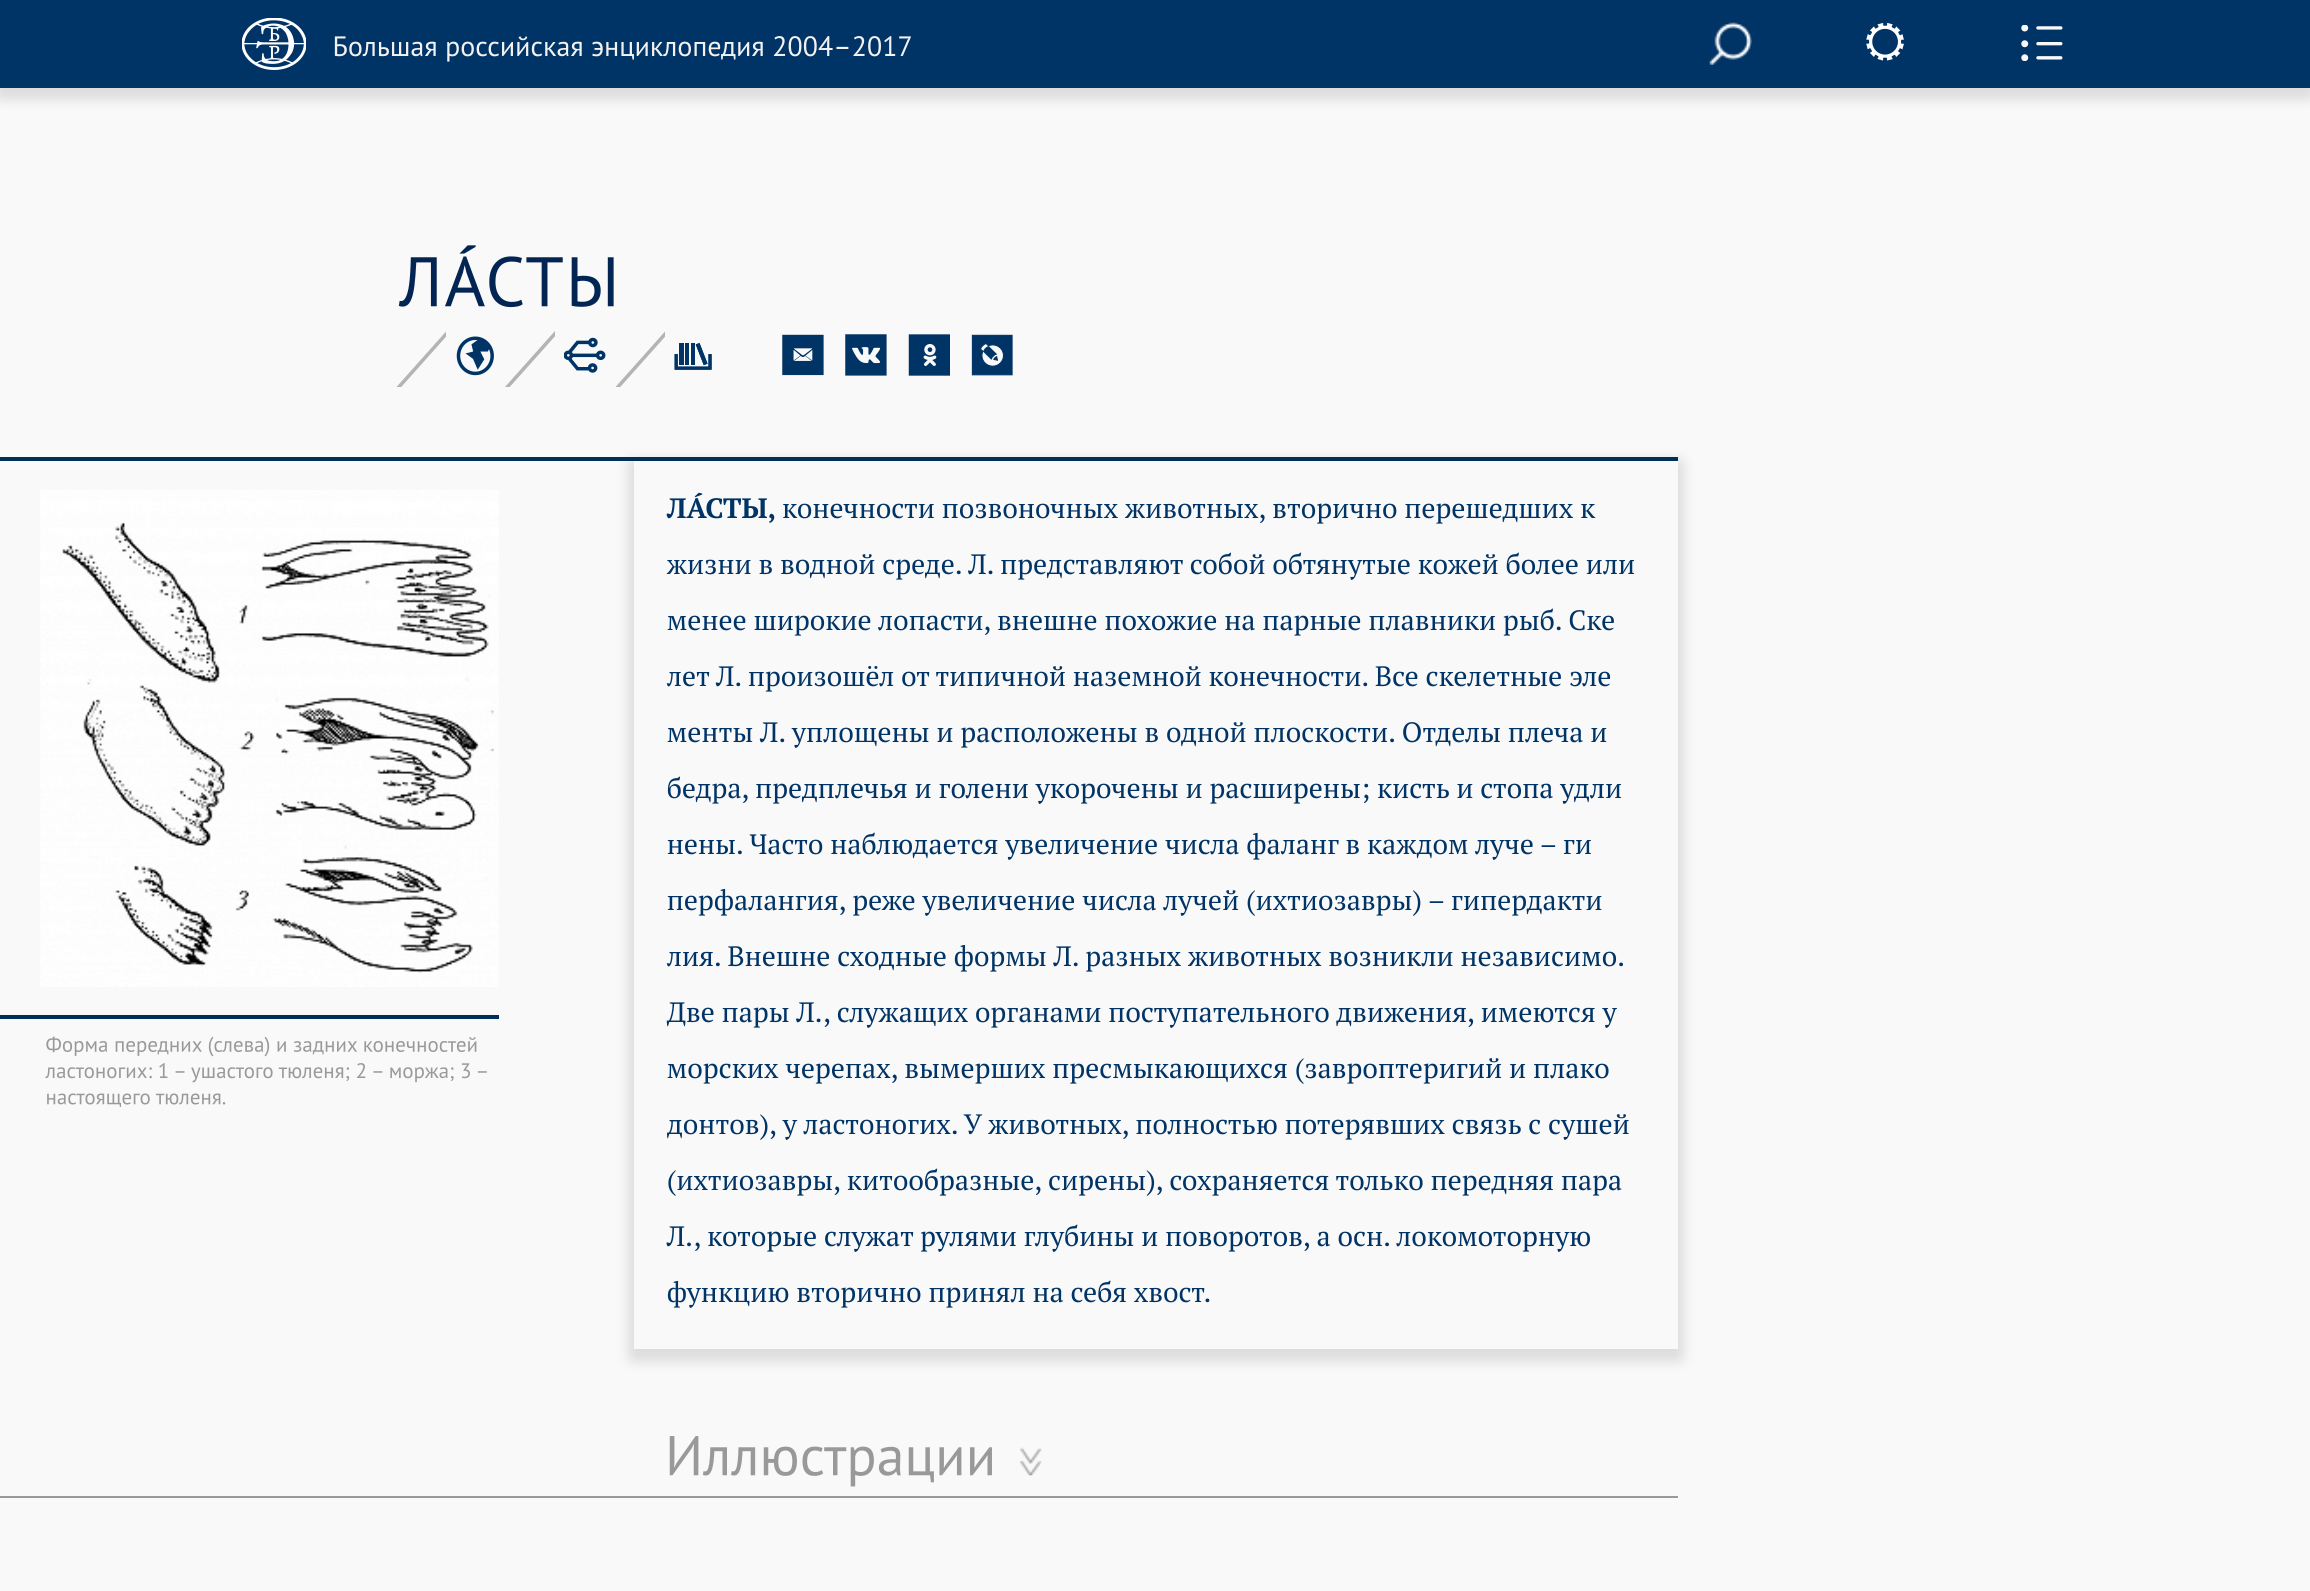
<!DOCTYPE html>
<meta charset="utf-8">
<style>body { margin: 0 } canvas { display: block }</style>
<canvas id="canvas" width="2310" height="1591"></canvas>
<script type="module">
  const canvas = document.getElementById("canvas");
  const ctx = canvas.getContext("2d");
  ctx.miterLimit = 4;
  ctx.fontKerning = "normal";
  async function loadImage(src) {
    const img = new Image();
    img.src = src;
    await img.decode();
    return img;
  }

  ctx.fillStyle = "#f9f9f9";
  ctx.fillRect(0, 0, 2310, 1591);
  ctx.fillStyle = "rgba(0, 0, 0, 0.11)";
  ctx.filter = "blur(6px)";
  ctx.beginPath();
  ctx.rect(-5, 2, 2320, 98);
  ctx.fill();
  ctx.filter = "none";
  ctx.drawImage(await loadImage("img1.png"), 398, 245, 216, 63);
  ctx.save();
  ctx.beginPath();
  ctx.rect(396, 331, 50, 56);
  ctx.clip();
  ctx.beginPath();
  ctx.moveTo(398, 388);
  ctx.lineTo(447, 333);
  ctx.strokeStyle = "#b4b4b4";
  ctx.lineWidth = 3.5;
  ctx.lineCap = "square";
  ctx.stroke();
  ctx.restore();
  ctx.drawImage(await loadImage("img2.png"), 456, 336, 38, 40);
  ctx.save();
  ctx.beginPath();
  ctx.rect(504, 331, 51, 56);
  ctx.clip();
  ctx.beginPath();
  ctx.moveTo(506.5, 388);
  ctx.lineTo(555.5, 333);
  ctx.strokeStyle = "#b4b4b4";
  ctx.lineWidth = 3.5;
  ctx.lineCap = "square";
  ctx.stroke();
  ctx.restore();
  ctx.drawImage(await loadImage("img3.png"), 564, 337, 42, 36);
  ctx.save();
  ctx.beginPath();
  ctx.rect(614, 331, 51, 56);
  ctx.clip();
  ctx.beginPath();
  ctx.moveTo(617, 388);
  ctx.lineTo(666, 333);
  ctx.strokeStyle = "#b4b4b4";
  ctx.lineWidth = 3.5;
  ctx.lineCap = "square";
  ctx.stroke();
  ctx.restore();
  ctx.drawImage(await loadImage("img4.png"), 674, 343, 38, 27);
  ctx.drawImage(await loadImage("img5.png"), 782, 334, 42, 42);
  ctx.drawImage(await loadImage("img6.png"), 845, 334, 42, 42);
  ctx.drawImage(await loadImage("img7.png"), 908, 334, 42, 42);
  ctx.drawImage(await loadImage("img8.png"), 971, 334, 42, 42);
  ctx.save();
  ctx.beginPath();
  ctx.moveTo(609, 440);
  ctx.lineTo(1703, 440);
  ctx.lineTo(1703, 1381);
  ctx.lineTo(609, 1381);
  ctx.closePath();
  ctx.moveTo(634, 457);
  ctx.lineTo(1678, 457);
  ctx.lineTo(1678, 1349);
  ctx.lineTo(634, 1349);
  ctx.closePath();
  ctx.clip("evenodd");
  ctx.filter = "blur(6px)";
  ctx.beginPath();
  ctx.rect(628, 459, 1056, 903);
  ctx.fill();
  ctx.filter = "none";
  ctx.restore();
  ctx.fillStyle = "#003057";
  ctx.fillRect(0, 457, 1678, 4);
  ctx.drawImage(await loadImage("img9.png"), 40, 490, 459, 497);
  ctx.fillRect(0, 1015, 499, 4);
  ctx.drawImage(await loadImage("img10.png"), 46, 1036, 431, 21);
  ctx.drawImage(await loadImage("img11.png"), 45, 1063, 442, 20);
  ctx.drawImage(await loadImage("img12.png"), 47, 1093, 179, 14);
  ctx.drawImage(await loadImage("img13.png"), 666, 492, 109, 31);
  ctx.drawImage(await loadImage("img14.png"), 783, 503, 813, 21);
  ctx.drawImage(await loadImage("img15.png"), 666, 552, 969, 28);
  ctx.drawImage(await loadImage("img16.png"), 667, 608, 947, 28);
  ctx.drawImage(await loadImage("img17.png"), 666, 666, 945, 26);
  ctx.drawImage(await loadImage("img18.png"), 667, 722, 940, 26);
  ctx.drawImage(await loadImage("img19.png"), 667, 776, 955, 28);
  ctx.drawImage(await loadImage("img20.png"), 667, 832, 924, 28);
  ctx.drawImage(await loadImage("img21.png"), 667, 888, 935, 28);
  ctx.drawImage(await loadImage("img22.png"), 666, 944, 957, 28);
  ctx.drawImage(await loadImage("img23.png"), 666, 1002, 951, 26);
  ctx.drawImage(await loadImage("img24.png"), 667, 1058, 942, 26);
  ctx.drawImage(await loadImage("img25.png"), 667, 1114, 962, 26);
  ctx.drawImage(await loadImage("img26.png"), 668, 1168, 954, 28);
  ctx.drawImage(await loadImage("img27.png"), 666, 1224, 924, 28);
  ctx.drawImage(await loadImage("img28.png"), 667, 1280, 543, 28);
  ctx.drawImage(await loadImage("img29.png"), 669, 1436, 323, 51);
  ctx.drawImage(await loadImage("img30.png"), 1020, 1447, 22, 29);
  ctx.fillStyle = "#999999";
  ctx.fillRect(0, 1496, 1678, 2);
  ctx.fillStyle = "#003366";
  ctx.fillRect(0, 0, 2310, 88);
  ctx.drawImage(await loadImage("img31.png"), 242, 18, 64, 52);
  ctx.drawImage(await loadImage("img32.png"), 334, 36, 577, 26);
  ctx.drawImage(await loadImage("img33.png"), 1709, 22, 43, 43);
  ctx.drawImage(await loadImage("img34.png"), 1866, 23, 38, 38);
  ctx.drawImage(await loadImage("img35.png"), 2021, 25, 42, 36);
</script>
